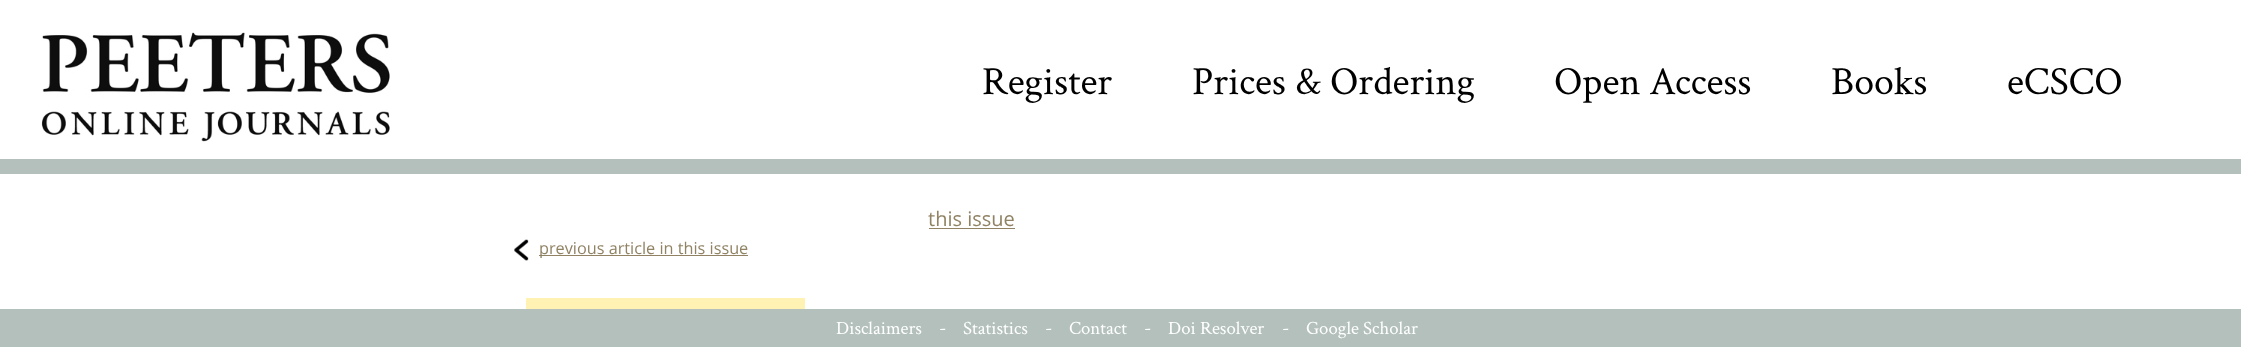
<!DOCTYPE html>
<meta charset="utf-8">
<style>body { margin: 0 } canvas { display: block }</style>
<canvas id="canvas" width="2241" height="347"></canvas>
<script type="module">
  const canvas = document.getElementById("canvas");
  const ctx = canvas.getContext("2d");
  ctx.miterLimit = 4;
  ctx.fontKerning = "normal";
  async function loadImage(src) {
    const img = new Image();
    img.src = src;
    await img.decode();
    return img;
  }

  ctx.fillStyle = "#ffffff";
  ctx.fillRect(0, 0, 2241, 347);
  ctx.drawImage(await loadImage("img1.png"), 41, 32, 349, 110);
  ctx.font = "40px Crimson Text";
  ctx.fillStyle = "#000000";
  ctx.fillText("Register", 982, 94);
  ctx.fillText("Prices & Ordering", 1192, 94);
  ctx.fillText("Open Access", 1554, 94);
  ctx.fillText("Books", 1831, 94);
  ctx.fillText("eCSCO", 2007, 94);
  ctx.fillStyle = "#b3c0bc";
  ctx.fillRect(0, 159, 2241, 15);
  ctx.font = "20px Open Sans";
  ctx.fillStyle = "#908263";
  ctx.fillText("this issue", 928, 226);
  ctx.fillRect(929, 228, 86, 1);
  ctx.drawImage(await loadImage("img2.png"), 514, 239, 15, 22);
  ctx.fillRect(539, 255, 209, 1);
  ctx.font = "16.25px Open Sans";
  ctx.fillText("previous article in this issue", 539, 254);
  ctx.fillStyle = "#fff2b3";
  ctx.fillRect(526, 298, 279, 11);
  ctx.fillStyle = "#b3c0bc";
  ctx.fillRect(0, 309, 2241, 38);
  ctx.font = "18.75px Crimson Text";
  ctx.fillStyle = "#ffffff";
  ctx.fillText("Disclaimers", 836, 334);
  ctx.font = "20px Crimson Text";
  ctx.fillText("-", 939, 334);
  ctx.font = "18.75px Crimson Text";
  ctx.fillText("Statistics", 963, 334);
  ctx.font = "20px Crimson Text";
  ctx.fillText("-", 1045, 334);
  ctx.font = "18.75px Crimson Text";
  ctx.fillText("Contact", 1069, 334);
  ctx.font = "20px Crimson Text";
  ctx.fillText("-", 1144, 334);
  ctx.font = "18.75px Crimson Text";
  ctx.fillText("Doi Resolver", 1168, 334);
  ctx.font = "20px Crimson Text";
  ctx.fillText("-", 1282, 334);
  ctx.font = "18.75px Crimson Text";
  ctx.fillText("Google Scholar", 1306, 334);
</script>
